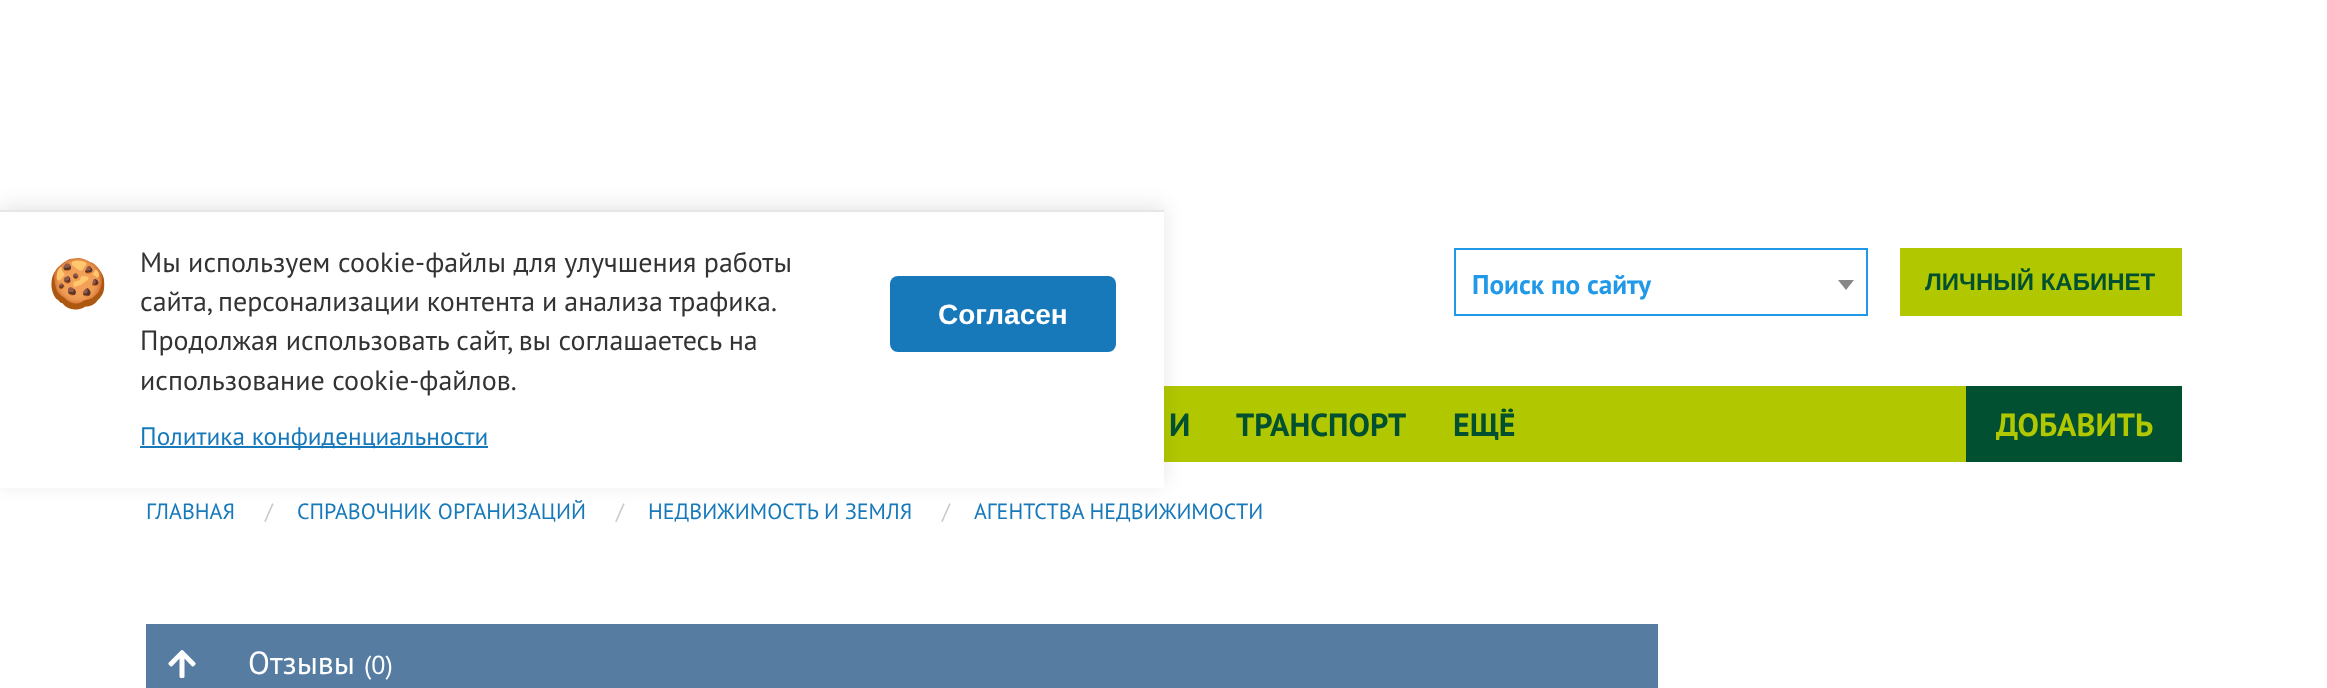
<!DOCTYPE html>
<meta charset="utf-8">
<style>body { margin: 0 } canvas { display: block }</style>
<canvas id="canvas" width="2327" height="688"></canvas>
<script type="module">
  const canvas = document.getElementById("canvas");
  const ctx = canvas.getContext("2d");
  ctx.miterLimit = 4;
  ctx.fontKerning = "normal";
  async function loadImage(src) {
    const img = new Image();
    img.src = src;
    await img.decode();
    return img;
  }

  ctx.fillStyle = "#ffffff";
  ctx.fillRect(0, 0, 2327, 688);
  ctx.fillStyle = "#b1c800";
  ctx.fillRect(1164, 386, 802, 76);
  ctx.fillStyle = "rgba(0, 0, 0, 0.1)";
  ctx.filter = "blur(10px)";
  ctx.beginPath();
  ctx.rect(0, 206, 1164, 278);
  ctx.fill();
  ctx.filter = "none";
  ctx.fillStyle = "#ffffff";
  ctx.fillRect(0, 212, 1164, 276);
  ctx.fillStyle = "#e6e6e6";
  ctx.fillRect(0, 210, 1164, 2);
  ctx.font = "48px Noto Color Emoji";
  ctx.fillStyle = "#333333";
  ctx.fillText("🍪", 48, 300);
  ctx.font = "28px PT Sans";
  ctx.fillText("Мы используем cookie-файлы для улучшения работы", 140, 272);
  ctx.wordSpacing = "-0.5px";
  ctx.fillText("сайта, персонализации контента и анализа трафика.", 140, 311);
  ctx.wordSpacing = "0px";
  ctx.fillText("Продолжая использовать сайт, вы соглашаетесь на", 140, 350);
  ctx.fillText("использование cookie-файлов.", 140, 390);
  ctx.fillStyle = "#1779ba";
  ctx.fillRect(140, 446, 348, 2);
  ctx.font = "25.25px PT Sans";
  ctx.fillText("Политика конфиденциальности", 140, 445);
  ctx.beginPath();
  ctx.roundRect(890, 276, 226, 76, 8);
  ctx.fill();
  ctx.font = "bold 28px Liberation Sans";
  ctx.fillStyle = "#ffffff";
  ctx.fillText("Согласен", 938, 324);
  ctx.strokeStyle = "#2199e8";
  ctx.lineWidth = 2;
  ctx.strokeRect(1455, 249, 412, 66);
  ctx.font = "bold 27.25px PT Sans";
  ctx.fillStyle = "#2199e8";
  ctx.fillText("Поиск по сайту", 1472, 294);
  ctx.fillStyle = "#888888";
  ctx.beginPath();
  ctx.moveTo(1838, 280);
  ctx.lineTo(1854, 280);
  ctx.lineTo(1846, 290);
  ctx.closePath();
  ctx.fill();
  ctx.fillStyle = "#b1c800";
  ctx.fillRect(1900, 248, 282, 68);
  ctx.font = "bold 24px Liberation Sans";
  ctx.fillStyle = "#005031";
  ctx.fillText("ЛИЧНЫЙ КАБИНЕТ", 1925, 290);
  ctx.font = "bold 32px PT Sans";
  ctx.fillText("И", 1169, 436);
  ctx.fillText("ТРАНСПОРТ", 1236, 436);
  ctx.fillText("ЕЩЁ", 1453, 436);
  ctx.fillRect(1966, 386, 216, 76);
  ctx.fillStyle = "#b1c800";
  ctx.fillText("ДОБАВИТЬ", 1996, 436);
  ctx.font = "22px PT Sans";
  ctx.fillStyle = "#1779ba";
  ctx.fillText("ГЛАВНАЯ", 146, 519);
  ctx.fillStyle = "#cacaca";
  ctx.fillText("/", 265, 519);
  ctx.fillStyle = "#1779ba";
  ctx.fillText("СПРАВОЧНИК ОРГАНИЗАЦИЙ", 297, 519);
  ctx.fillStyle = "#cacaca";
  ctx.fillText("/", 616, 519);
  ctx.fillStyle = "#1779ba";
  ctx.fillText("НЕДВИЖИМОСТЬ И ЗЕМЛЯ", 648, 519);
  ctx.fillStyle = "#cacaca";
  ctx.fillText("/", 942, 519);
  ctx.fillStyle = "#1779ba";
  ctx.fillText("АГЕНТСТВА НЕДВИЖИМОСТИ", 974, 519);
  ctx.fillStyle = "#567da1";
  ctx.fillRect(146, 624, 1512, 64);
  ctx.drawImage(await loadImage("img1.png"), 168, 650, 28, 28);
  ctx.font = "32px PT Sans";
  ctx.fillStyle = "#ffffff";
  ctx.fillText("Отзывы", 248, 674);
  ctx.font = "26px PT Sans";
  ctx.fillText("(0)", 364, 674);
</script>
